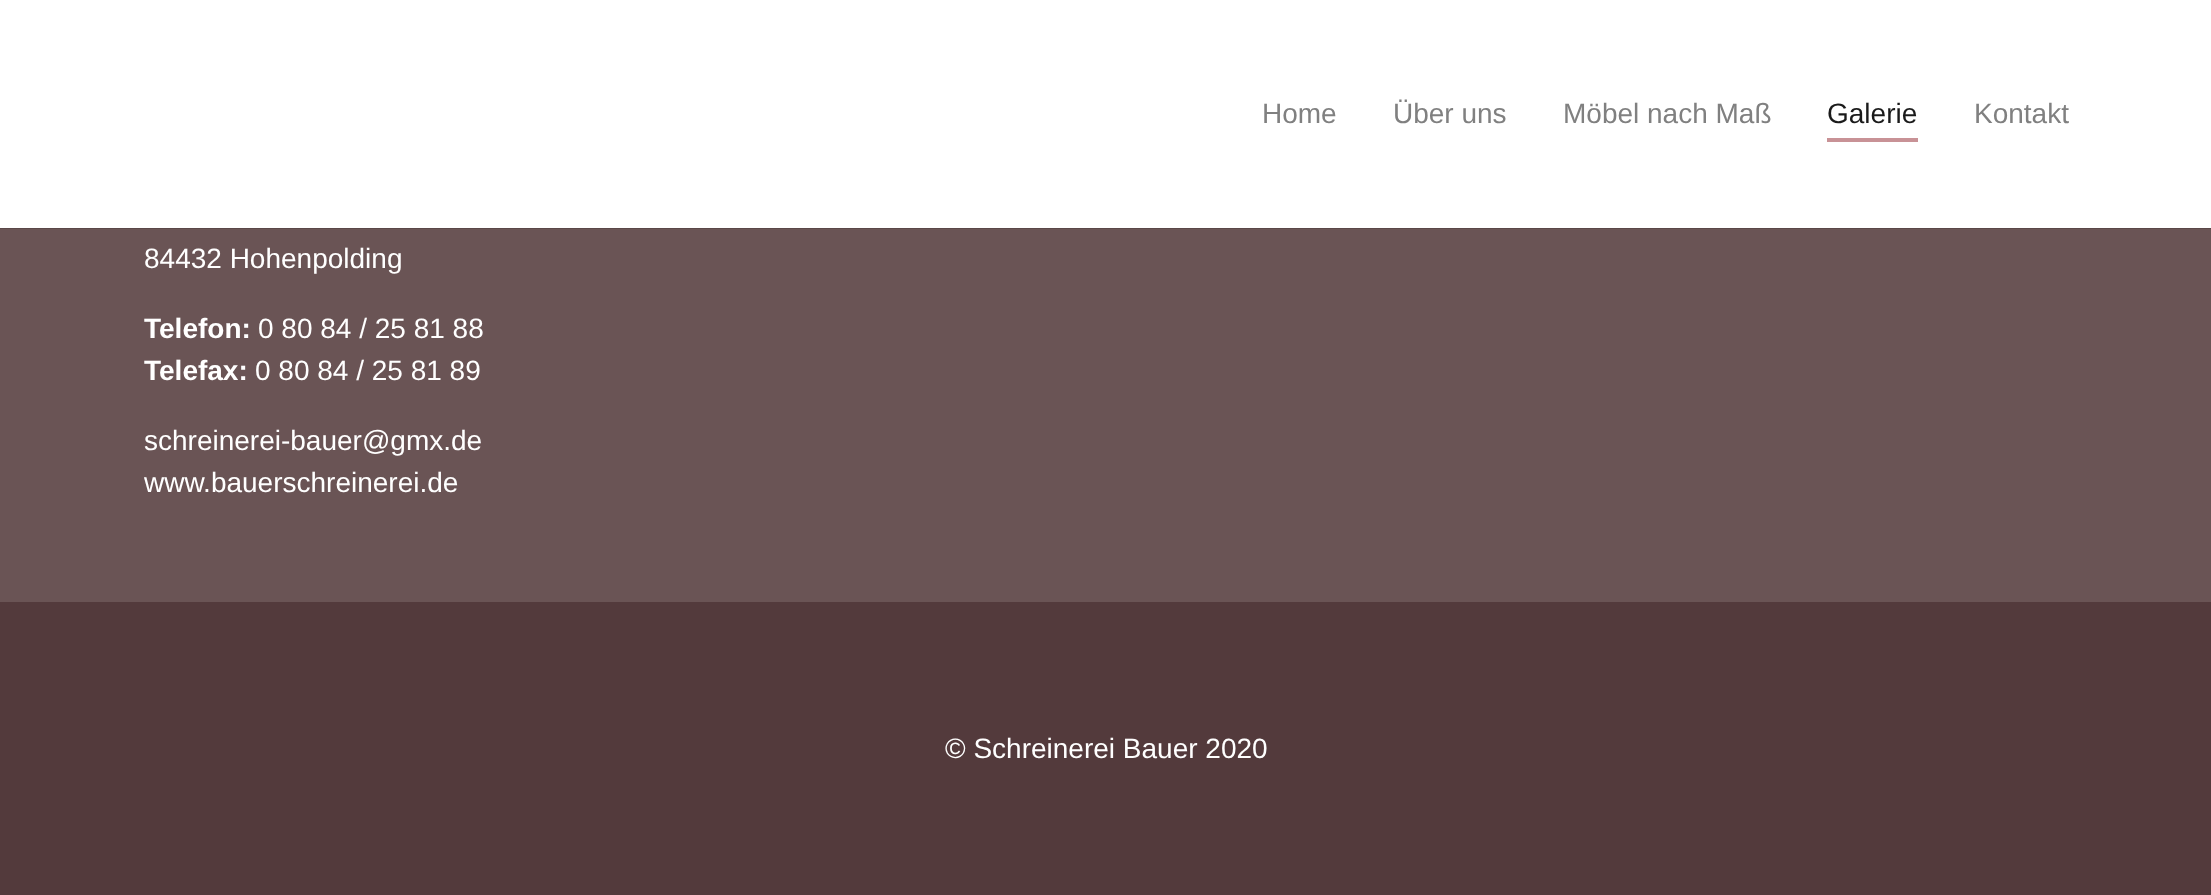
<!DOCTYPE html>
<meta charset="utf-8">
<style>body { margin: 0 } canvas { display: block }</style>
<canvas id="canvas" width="2211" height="895"></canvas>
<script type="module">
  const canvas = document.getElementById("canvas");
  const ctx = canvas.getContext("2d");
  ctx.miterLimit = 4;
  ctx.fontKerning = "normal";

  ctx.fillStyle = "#6a5455";
  ctx.fillRect(0, 0, 2211, 895);
  ctx.fillStyle = "rgba(0, 0, 0, 0.15)";
  ctx.fillRect(0, 228, 2211, 1);
  ctx.fillStyle = "#ffffff";
  ctx.fillRect(0, 0, 2211, 228);
  ctx.font = "28px Liberation Sans";
  ctx.fillStyle = "#808080";
  ctx.fillText("Home", 1262, 123);
  ctx.fillText("Über uns", 1393, 123);
  ctx.fillText("Möbel nach Maß", 1563, 123);
  ctx.fillStyle = "#1a1a1a";
  ctx.fillText("Galerie", 1827, 123);
  ctx.fillStyle = "#c89296";
  ctx.fillRect(1827, 138, 91, 4);
  ctx.fillStyle = "#808080";
  ctx.fillText("Kontakt", 1974, 123);
  ctx.fillStyle = "#ffffff";
  ctx.fillText("84432 Hohenpolding", 144, 268);
  ctx.font = "bold 28px Liberation Sans";
  ctx.fillText("Telefon:", 144, 338);
  ctx.font = "28px Liberation Sans";
  ctx.fillText("0 80 84 / 25 81 88", 258, 338);
  ctx.font = "bold 28px Liberation Sans";
  ctx.fillText("Telefax:", 144, 380);
  ctx.font = "28px Liberation Sans";
  ctx.fillText("0 80 84 / 25 81 89", 255, 380);
  ctx.fillText("schreinerei-bauer@gmx.de", 144, 450);
  ctx.fillText("www.bauerschreinerei.de", 144, 492);
  ctx.fillStyle = "#533a3c";
  ctx.fillRect(0, 602, 2211, 293);
  ctx.fillStyle = "#ffffff";
  ctx.fillText("© Schreinerei Bauer 2020", 945, 758);
</script>
